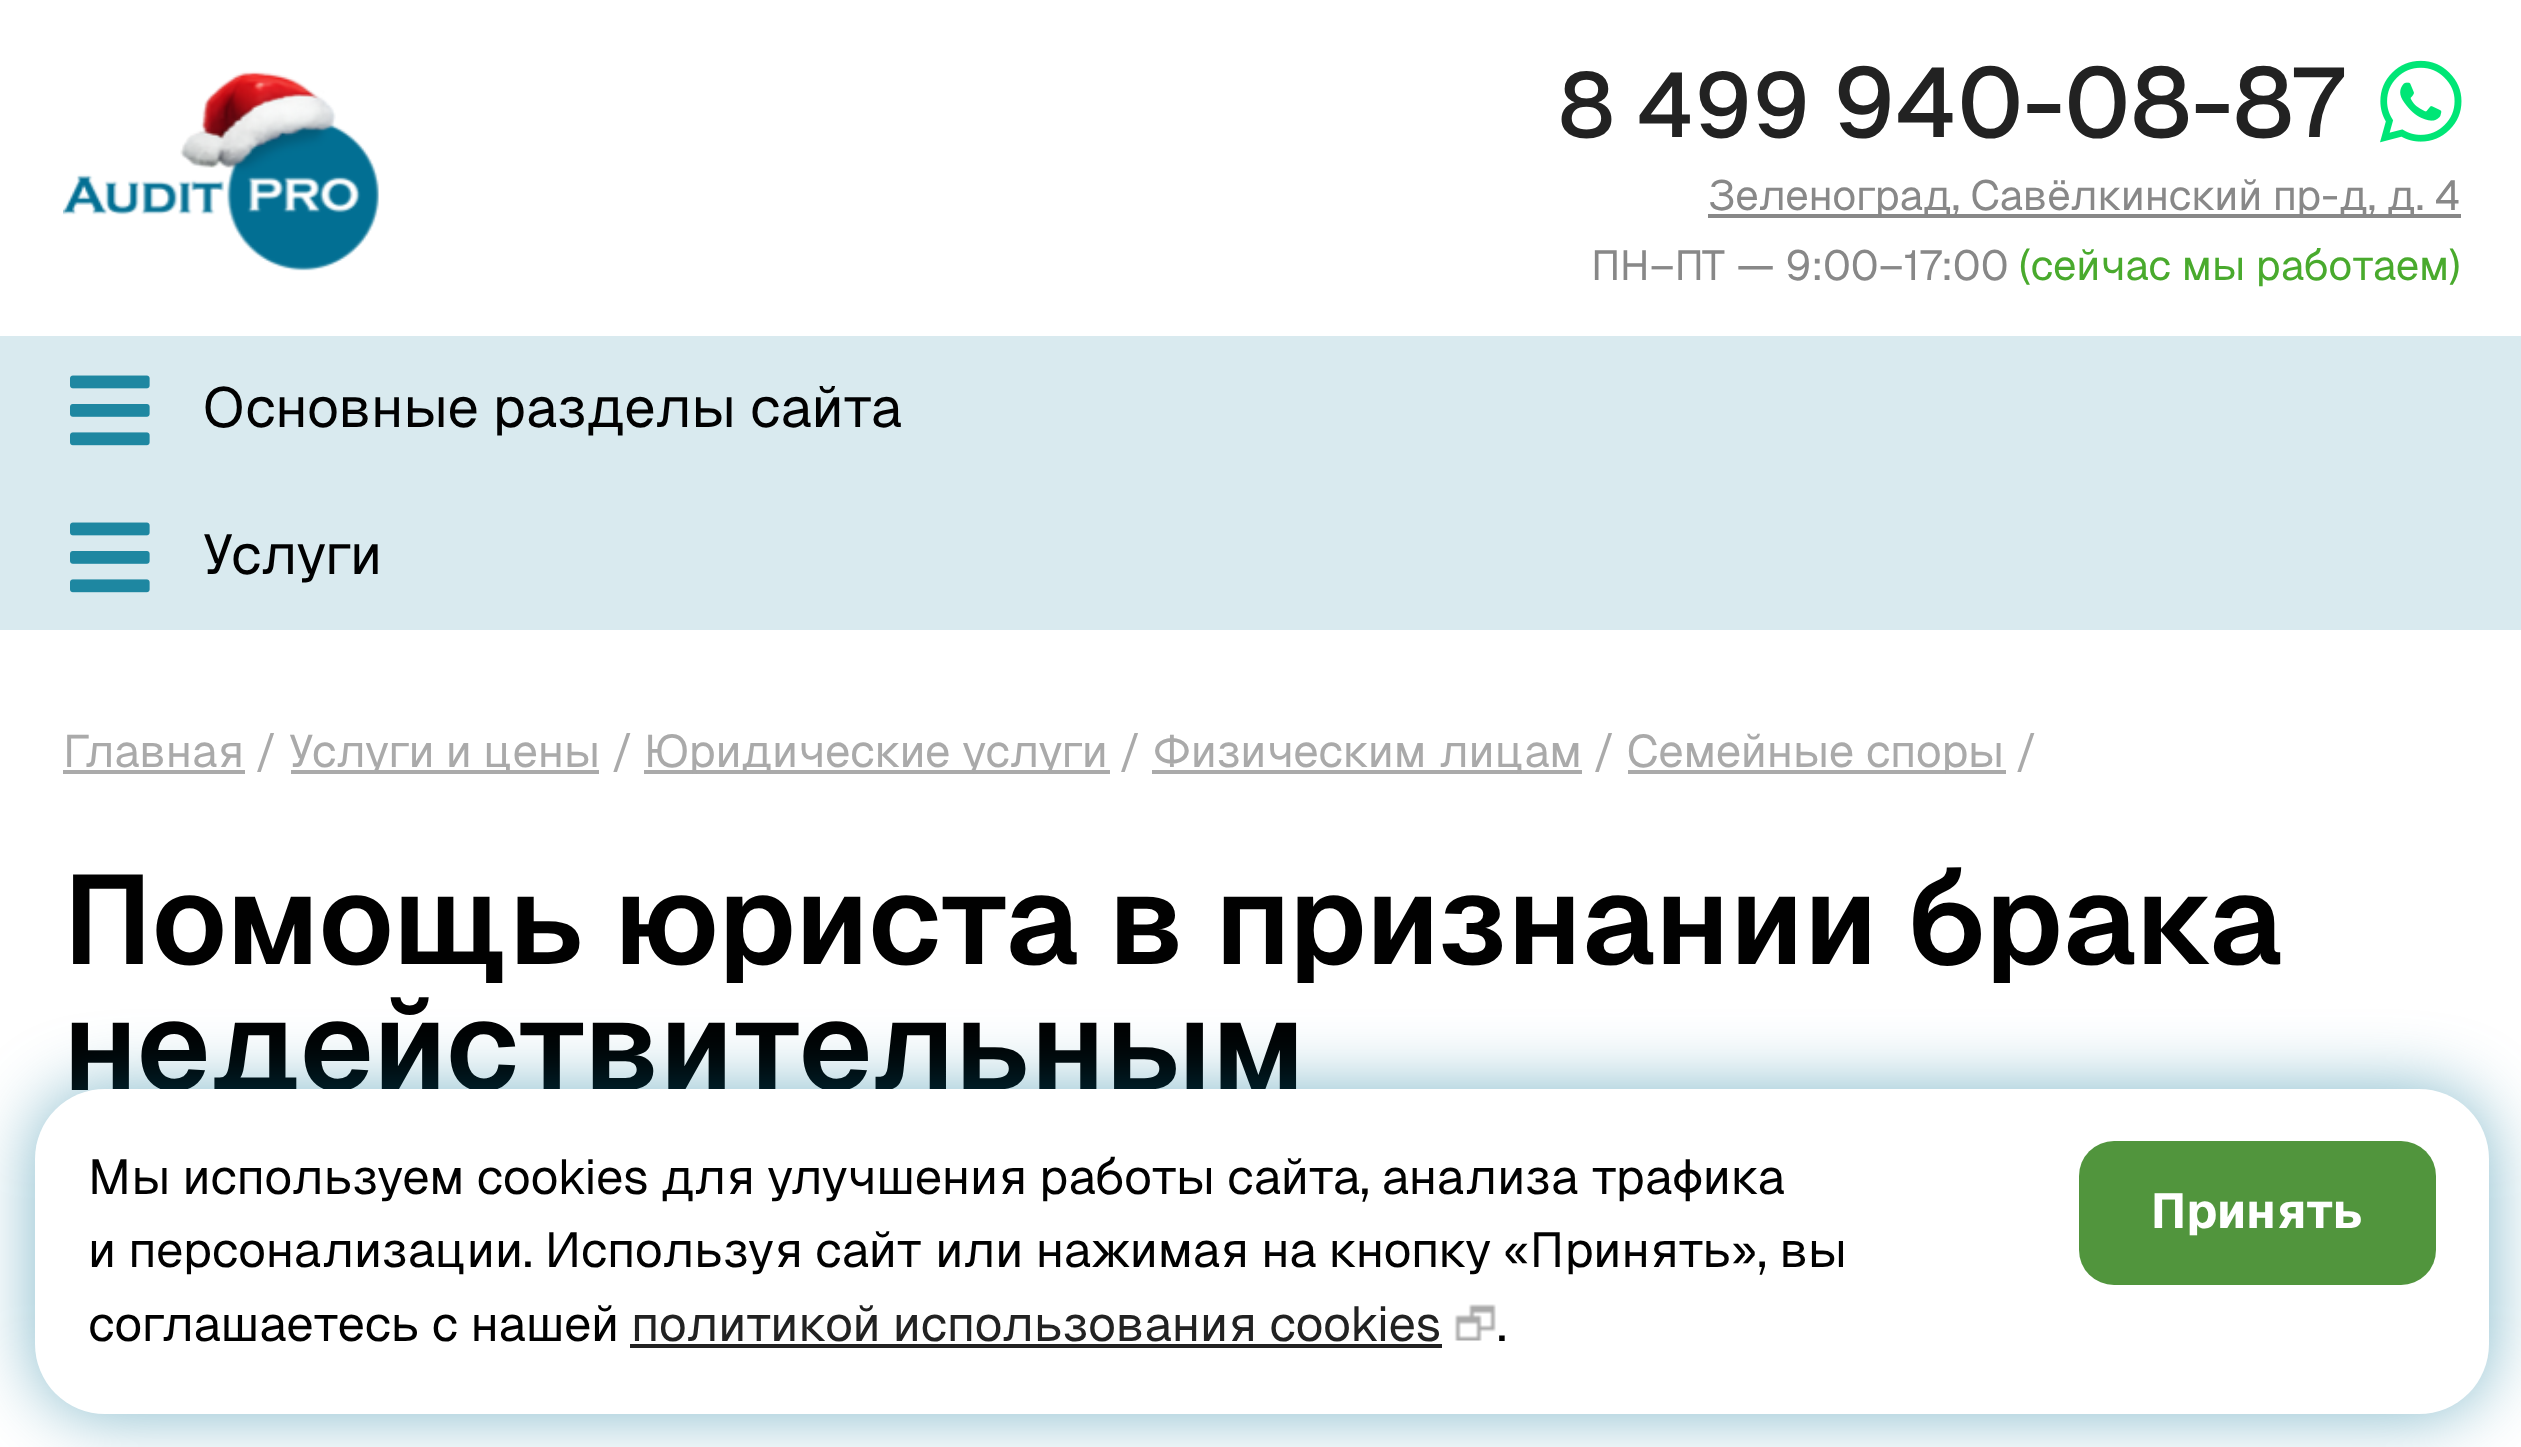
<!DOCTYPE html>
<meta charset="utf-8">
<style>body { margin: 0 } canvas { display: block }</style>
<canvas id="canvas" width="2521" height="1447"></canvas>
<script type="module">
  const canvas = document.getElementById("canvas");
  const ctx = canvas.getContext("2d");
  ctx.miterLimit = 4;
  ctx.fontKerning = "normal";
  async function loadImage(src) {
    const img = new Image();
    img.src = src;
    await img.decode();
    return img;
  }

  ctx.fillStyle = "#ffffff";
  ctx.fillRect(0, 0, 2521, 1447);
  ctx.drawImage(await loadImage("img1.png"), 63, 71, 316, 200);
  ctx.font = "500 91px Geist";
  ctx.fillStyle = "#222222";
  ctx.fillText("8 499", 1558, 137);
  ctx.font = "500 98px Geist";
  ctx.fillText("940-08-87", 1833, 137);
  ctx.drawImage(await loadImage("img2.png"), 2380, 60, 82, 83);
  ctx.fillStyle = "#888888";
  ctx.fillRect(1708, 214, 753, 4);
  ctx.font = "42px Geist";
  ctx.fillText("Зеленоград, Савёлкинский пр-д, д. 4", 1708, 210);
  ctx.fillText("ПН–ПТ — 9:00–17:00", 1591, 280);
  ctx.fillStyle = "#49aa2d";
  ctx.fillText("(сейчас мы работаем)", 2019, 280);
  ctx.fillStyle = "#d9eaef";
  ctx.fillRect(0, 336, 2521, 294);
  ctx.drawImage(await loadImage("img3.png"), 70, 375, 80, 71);
  ctx.font = "56px Geist";
  ctx.fillStyle = "#010101";
  ctx.fillText("Основные разделы сайта", 203, 427);
  ctx.drawImage(await loadImage("img3.png"), 70, 522, 80, 71);
  ctx.fillText("Услуги", 203, 574);
  ctx.fillStyle = "#aaaaaa";
  ctx.fillRect(63, 770, 182, 4);
  ctx.font = "45.5px Geist";
  ctx.fillText("Главная /", 63, 767);
  ctx.fillRect(291, 770, 308, 4);
  ctx.fillText("Услуги и цены /", 289, 767);
  ctx.fillRect(644, 770, 466, 4);
  ctx.fillText("Юридические услуги /", 644, 767);
  ctx.fillRect(1152, 770, 430, 4);
  ctx.fillText("Физическим лицам /", 1153, 767);
  ctx.fillRect(1628, 770, 378, 4);
  ctx.fillText("Семейные споры /", 1627, 767);
  ctx.font = "600 126px Geist";
  ctx.fillStyle = "#010101";
  ctx.fillText("Помощь юриста в признании брака", 63, 964);
  ctx.fillText("недействительным", 63, 1090);
  ctx.fillStyle = "rgba(2, 111, 147, 0.5)";
  ctx.filter = "blur(35px)";
  ctx.beginPath();
  ctx.roundRect(35, 1089, 2454, 325, 70);
  ctx.fill();
  ctx.filter = "none";
  ctx.fillStyle = "#ffffff";
  ctx.beginPath();
  ctx.roundRect(35, 1089, 2454, 325, 70);
  ctx.fill();
  ctx.font = "49px Geist";
  ctx.fillStyle = "#010101";
  ctx.fillText("Мы используем cookies для улучшения работы сайта, анализа трафика", 88, 1194);
  ctx.fillStyle = "#51953d";
  ctx.beginPath();
  ctx.roundRect(2079, 1141, 357, 144, 35);
  ctx.fill();
  ctx.font = "bold 49px Geist";
  ctx.fillStyle = "#ffffff";
  ctx.fillText("Принять", 2151, 1228);
  ctx.font = "49px Geist";
  ctx.fillStyle = "#010101";
  ctx.fillText("и персонализации. Используя сайт или нажимая на кнопку «Принять», вы", 88, 1267);
  ctx.fillText("соглашаетесь с нашей", 88, 1341);
  ctx.fillStyle = "#222222";
  ctx.fillText("политикой использования cookies", 631, 1341);
  ctx.fillRect(630, 1344, 812, 4);
  ctx.drawImage(await loadImage("img4.png"), 1454, 1304, 42, 37);
  ctx.fillStyle = "#010101";
  ctx.fillText(".", 1497, 1341);
</script>
